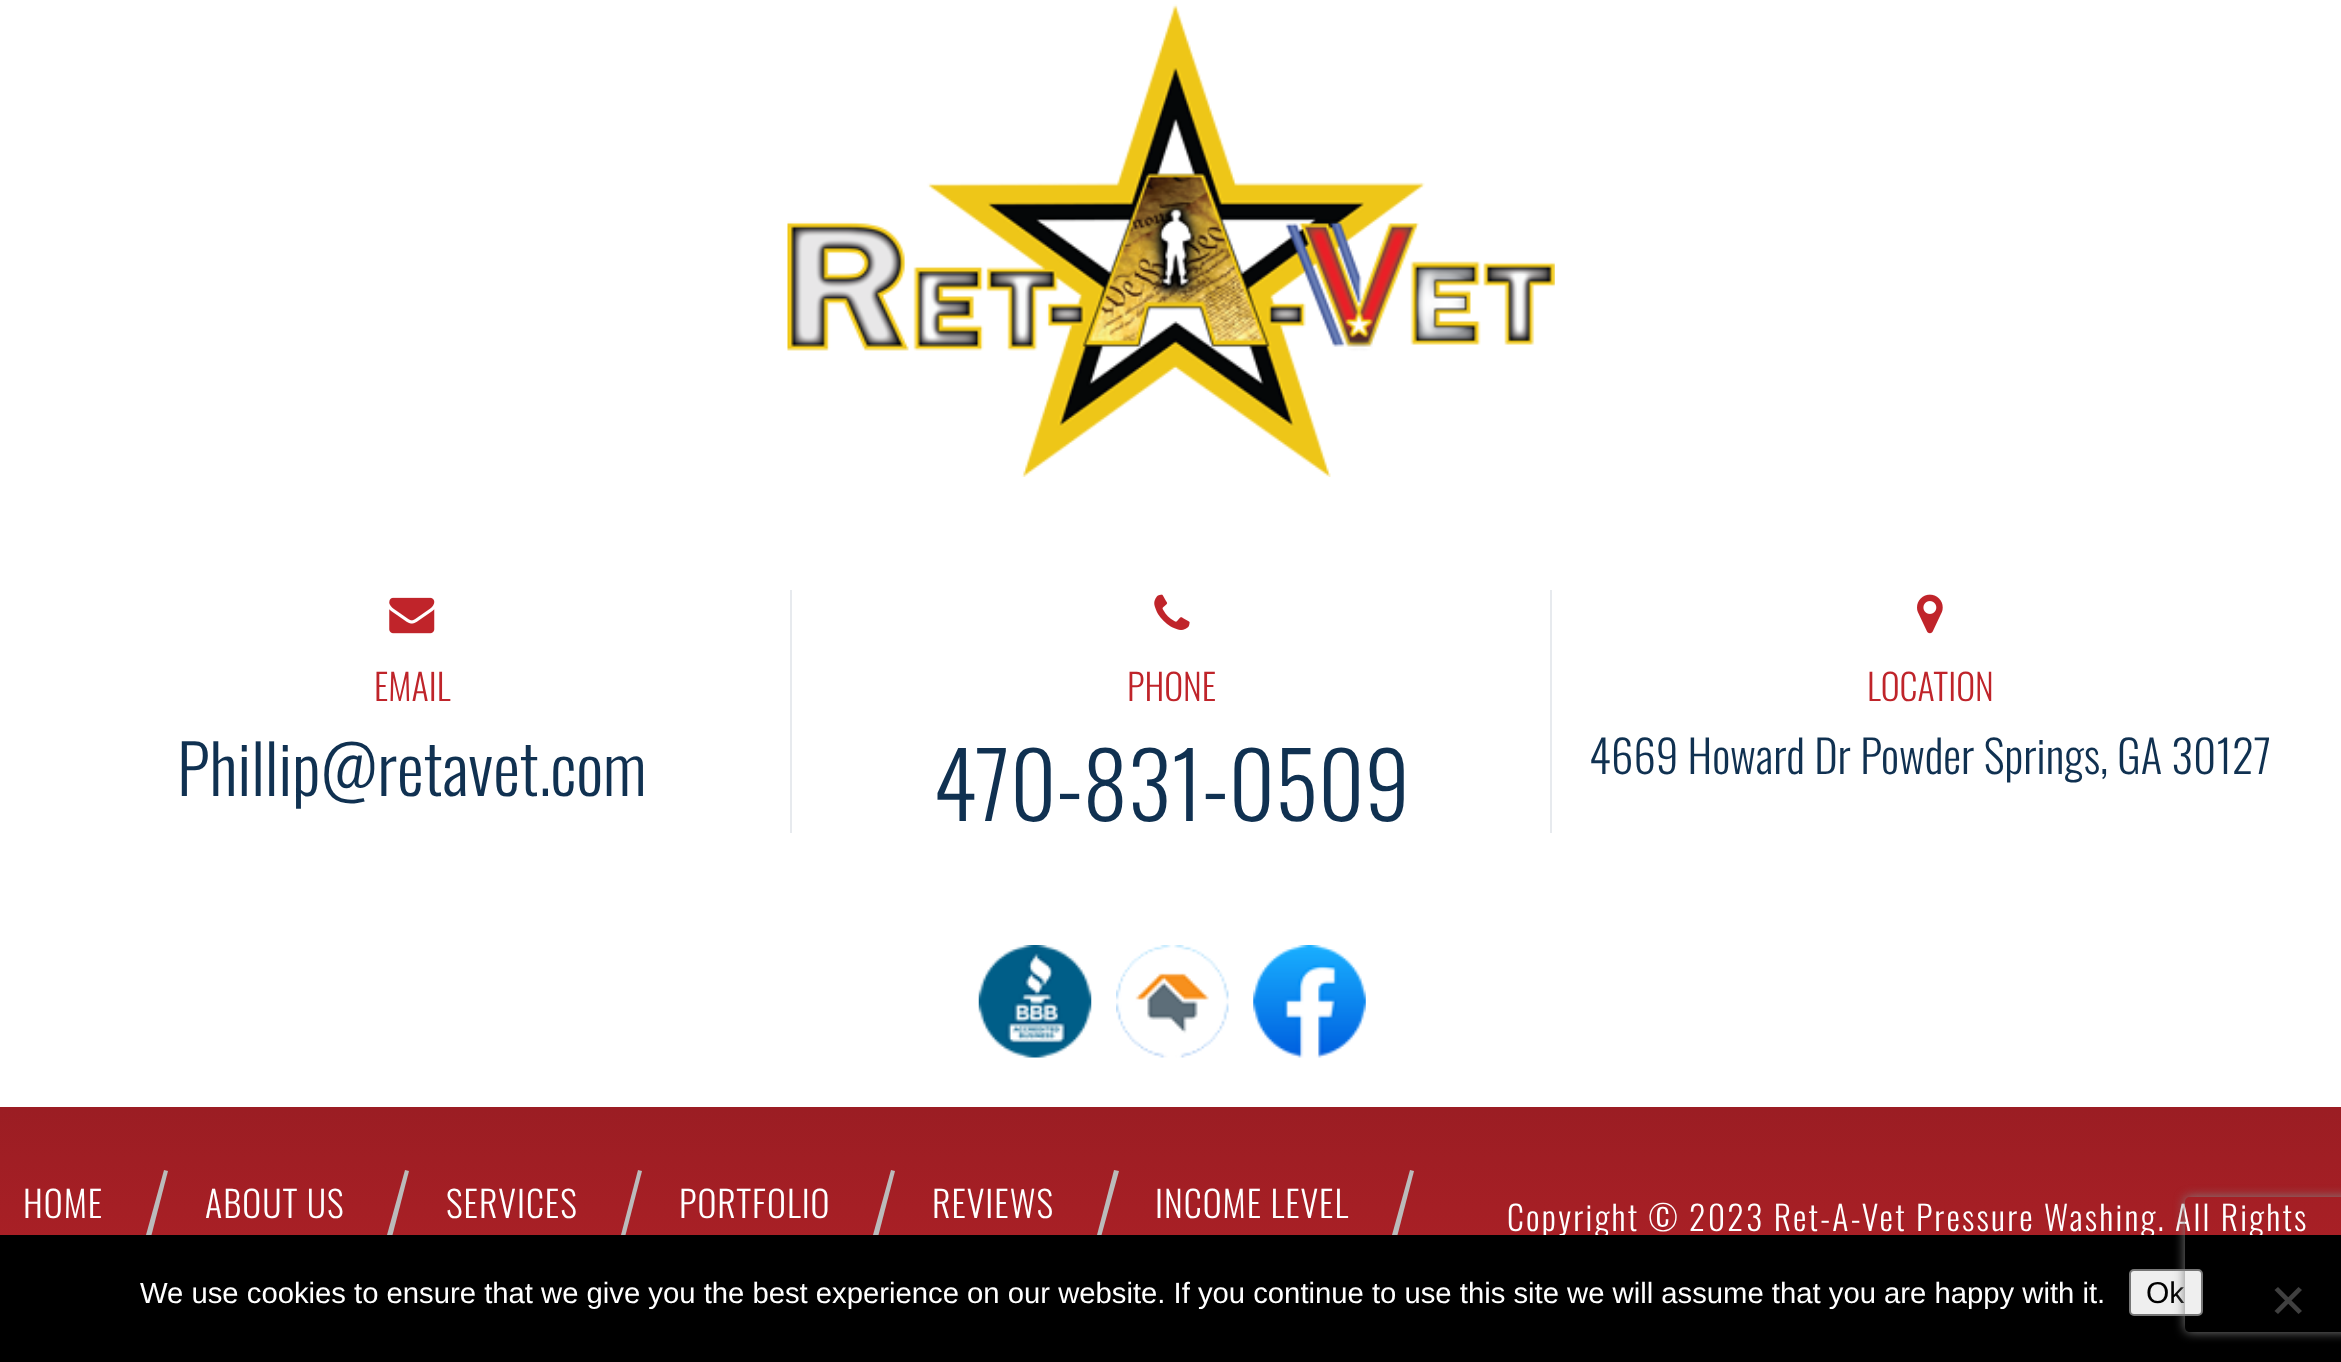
<!DOCTYPE html>
<meta charset="utf-8">
<style>body { margin: 0 } canvas { display: block }</style>
<canvas id="canvas" width="2341" height="1362"></canvas>
<script type="module">
  const canvas = document.getElementById("canvas");
  const ctx = canvas.getContext("2d");
  ctx.miterLimit = 4;
  ctx.fontKerning = "normal";
  async function loadImage(src) {
    const img = new Image();
    img.src = src;
    await img.decode();
    return img;
  }
  let gradient;

  ctx.fillStyle = "#ffffff";
  ctx.fillRect(0, 0, 2341, 1362);
  ctx.drawImage(await loadImage("img1.png"), 787, 4, 768, 473);
  ctx.drawImage(await loadImage("img2.png"), 389, 597, 46, 37);
  ctx.font = "300 36px Oswald";
  ctx.fillStyle = "#bf242a";
  ctx.fillText("EMAIL", 374, 701);
  ctx.font = "300 67.5px Oswald";
  ctx.fillStyle = "#103151";
  ctx.fillText("Phillip@retavet.com", 177, 796);
  ctx.fillStyle = "#e7eaee";
  ctx.fillRect(1550, 590, 2, 243);
  ctx.fillRect(790, 590, 2, 243);
  ctx.drawImage(await loadImage("img3.png"), 1154, 594, 36, 36);
  ctx.font = "300 36px Oswald";
  ctx.fillStyle = "#bf242a";
  ctx.fillText("PHONE", 1127, 701);
  ctx.font = "300 90px Oswald";
  ctx.fillStyle = "#103151";
  ctx.fillText("470-831-0509", 933, 821);
  ctx.drawImage(await loadImage("img4.png"), 1917, 594, 26, 40);
  ctx.font = "300 36px Oswald";
  ctx.fillStyle = "#bf242a";
  ctx.fillText("LOCATION", 1867, 701);
  ctx.font = "300 45px Oswald";
  ctx.fillStyle = "#103151";
  ctx.fillText("4669 Howard Dr Powder Springs, GA 30127", 1589, 774);
  ctx.drawImage(await loadImage("img5.png"), 978, 945, 114, 113);
  ctx.drawImage(await loadImage("img6.png"), 1116, 945, 113, 113);
  ctx.drawImage(await loadImage("img7.png"), 1253, 945, 113, 113);
  gradient = ctx.createLinearGradient(1171, 1107, 1171, 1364);
  gradient.addColorStop(0, "#9b1d23");
  gradient.addColorStop(1, "#b52228");
  ctx.fillStyle = gradient;
  ctx.fillRect(0, 1107, 2341, 128);
  ctx.letterSpacing = "1px";
  ctx.font = "300 36px Oswald";
  ctx.fillStyle = "#ffffff";
  ctx.fillText("HOME", 23, 1218);
  ctx.fillStyle = "#bbbbbb";
  ctx.beginPath();
  ctx.moveTo(164, 1170);
  ctx.lineTo(168, 1171);
  ctx.lineTo(151, 1237);
  ctx.lineTo(146, 1235);
  ctx.closePath();
  ctx.fill();
  ctx.fillStyle = "#ffffff";
  ctx.fillText("ABOUT US", 205, 1218);
  ctx.fillStyle = "#bbbbbb";
  ctx.beginPath();
  ctx.moveTo(405, 1170);
  ctx.lineTo(409, 1171);
  ctx.lineTo(392, 1237);
  ctx.lineTo(387, 1235);
  ctx.closePath();
  ctx.fill();
  ctx.fillStyle = "#ffffff";
  ctx.fillText("SERVICES", 446, 1218);
  ctx.fillStyle = "#bbbbbb";
  ctx.beginPath();
  ctx.moveTo(638, 1170);
  ctx.lineTo(642, 1171);
  ctx.lineTo(625, 1237);
  ctx.lineTo(621, 1235);
  ctx.closePath();
  ctx.fill();
  ctx.fillStyle = "#ffffff";
  ctx.fillText("PORTFOLIO", 679, 1218);
  ctx.fillStyle = "#bbbbbb";
  ctx.beginPath();
  ctx.moveTo(891, 1170);
  ctx.lineTo(895, 1171);
  ctx.lineTo(878, 1237);
  ctx.lineTo(873, 1235);
  ctx.closePath();
  ctx.fill();
  ctx.fillStyle = "#ffffff";
  ctx.fillText("REVIEWS", 932, 1218);
  ctx.fillStyle = "#bbbbbb";
  ctx.beginPath();
  ctx.moveTo(1114, 1170);
  ctx.lineTo(1119, 1171);
  ctx.lineTo(1101, 1237);
  ctx.lineTo(1097, 1235);
  ctx.closePath();
  ctx.fill();
  ctx.fillStyle = "#ffffff";
  ctx.fillText("INCOME LEVEL", 1155, 1218);
  ctx.fillStyle = "#bbbbbb";
  ctx.beginPath();
  ctx.moveTo(1410, 1170);
  ctx.lineTo(1414, 1171);
  ctx.lineTo(1397, 1237);
  ctx.lineTo(1392, 1235);
  ctx.closePath();
  ctx.fill();
  ctx.letterSpacing = "2.25px";
  ctx.font = "300 33.75px Oswald";
  ctx.fillStyle = "#ffffff";
  ctx.fillText("Copyright © 2023 Ret-A-Vet Pressure Washing. All Rights", 1507, 1231);
  ctx.fillStyle = "#000000";
  ctx.fillRect(0, 1235, 2341, 127);
  ctx.letterSpacing = "0px";
  ctx.font = "29.25px Liberation Sans";
  ctx.fillStyle = "#ffffff";
  ctx.fillText("We use cookies to ensure that we give you the best experience on our website. If you continue to use this site we will assume that you are happy with it.", 140, 1303);
  ctx.fillStyle = "#efefef";
  ctx.beginPath();
  ctx.roundRect(2130, 1270, 72, 45, 4);
  ctx.fill();
  ctx.strokeStyle = "#767676";
  ctx.lineWidth = 2;
  ctx.stroke();
  ctx.font = "30px Liberation Sans";
  ctx.fillStyle = "#000000";
  ctx.fillText("Ok", 2146, 1303);
  ctx.fillStyle = "#404040";
  ctx.beginPath();
  ctx.moveTo(2298.5, 1287);
  ctx.lineTo(2302, 1290);
  ctx.lineTo(2278, 1314);
  ctx.lineTo(2274.5, 1311);
  ctx.closePath();
  ctx.fill();
  ctx.beginPath();
  ctx.moveTo(2274.5, 1290);
  ctx.lineTo(2278, 1287);
  ctx.lineTo(2302, 1311);
  ctx.lineTo(2298.5, 1314);
  ctx.closePath();
  ctx.fill();
  ctx.save();
  ctx.beginPath();
  ctx.moveTo(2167, 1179);
  ctx.lineTo(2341, 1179);
  ctx.lineTo(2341, 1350);
  ctx.lineTo(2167, 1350);
  ctx.closePath();
  ctx.moveTo(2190, 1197);
  ctx.lineTo(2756, 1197);
  ctx.bezierCurveTo(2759, 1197, 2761, 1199, 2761, 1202);
  ctx.lineTo(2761, 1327);
  ctx.bezierCurveTo(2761, 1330, 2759, 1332, 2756, 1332);
  ctx.lineTo(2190, 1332);
  ctx.bezierCurveTo(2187, 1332, 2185, 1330, 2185, 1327);
  ctx.lineTo(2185, 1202);
  ctx.bezierCurveTo(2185, 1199, 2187, 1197, 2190, 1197);
  ctx.closePath();
  ctx.clip("evenodd");
  ctx.fillStyle = "#808080";
  ctx.filter = "blur(5.5px)";
  ctx.beginPath();
  ctx.roundRect(2185, 1197, 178, 135, 5);
  ctx.fill();
  ctx.filter = "none";
  ctx.restore();
</script>
